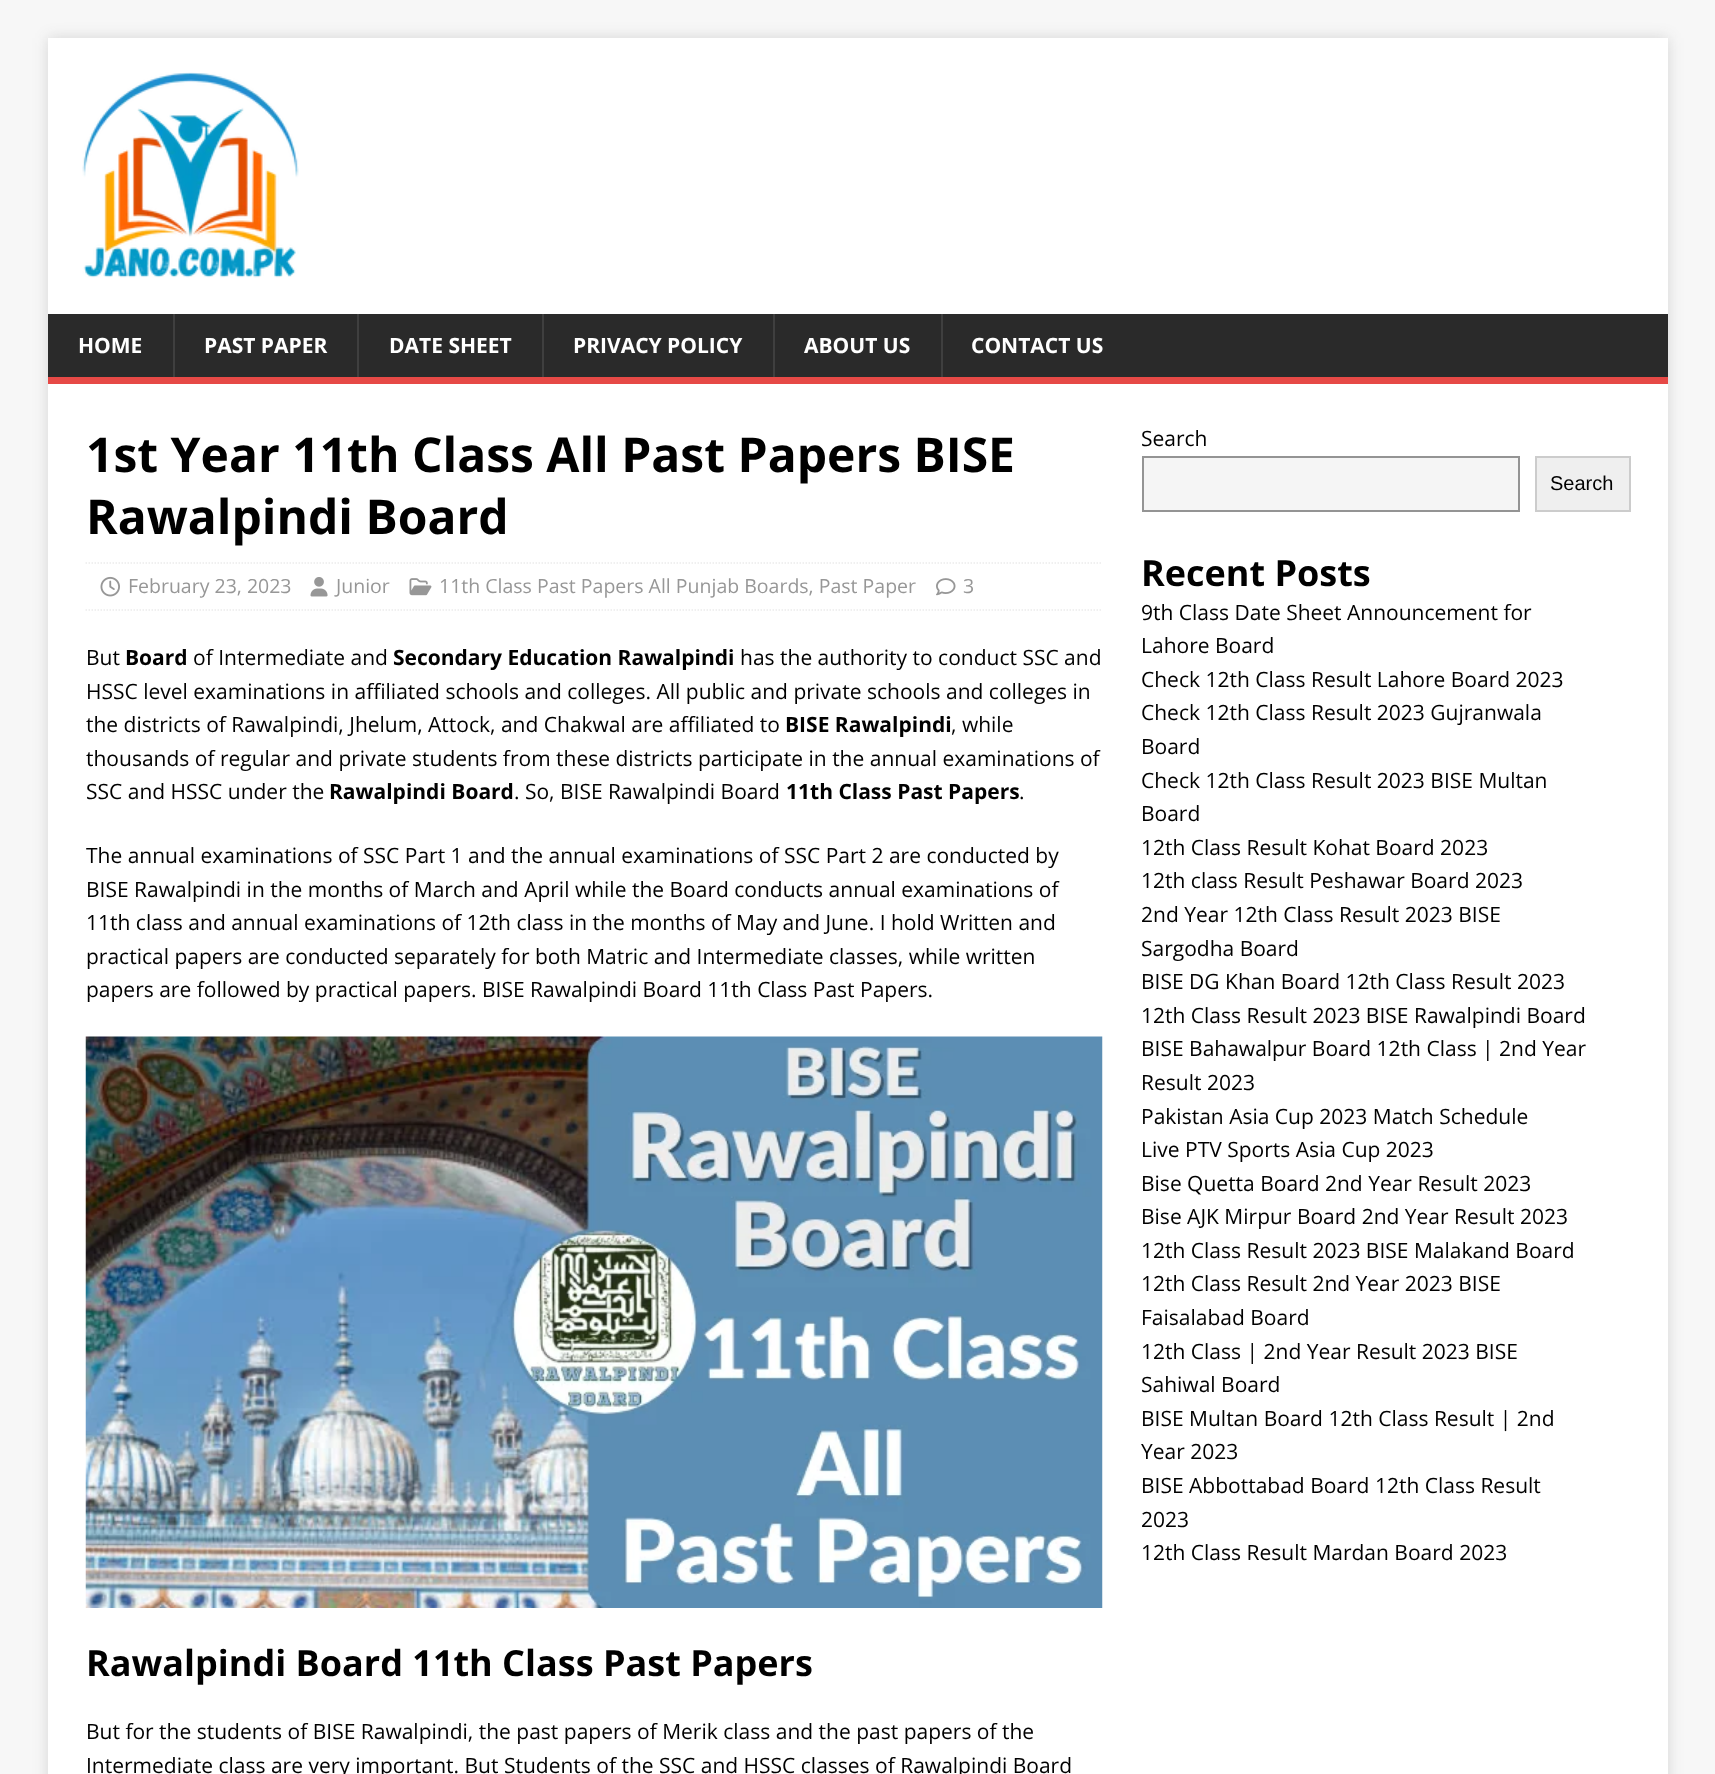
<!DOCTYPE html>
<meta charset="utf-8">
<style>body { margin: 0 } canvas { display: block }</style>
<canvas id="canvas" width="1715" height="1774"></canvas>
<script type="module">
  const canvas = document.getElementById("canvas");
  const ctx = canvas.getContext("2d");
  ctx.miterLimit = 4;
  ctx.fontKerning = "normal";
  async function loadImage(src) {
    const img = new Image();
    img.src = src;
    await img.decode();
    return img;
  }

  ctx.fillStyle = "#f7f7f7";
  ctx.fillRect(0, 0, 1715, 1774);
  ctx.fillStyle = "rgba(50, 50, 50, 0.17)";
  ctx.filter = "blur(7.5px)";
  ctx.beginPath();
  ctx.rect(48, 38, 1620, 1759);
  ctx.fill();
  ctx.filter = "none";
  ctx.fillStyle = "#ffffff";
  ctx.fillRect(48, 38, 1620, 276);
  ctx.drawImage(await loadImage("img1.png"), 82, 72, 217, 206);
  ctx.fillStyle = "#2a2a2a";
  ctx.fillRect(48, 314, 1620, 63);
  ctx.fillStyle = "#e64946";
  ctx.fillRect(48, 377, 1620, 7);
  ctx.font = "bold 21px Open Sans";
  ctx.fillStyle = "#ffffff";
  ctx.fillText("HOME", 78, 353);
  ctx.fillStyle = "#3f3f3f";
  ctx.fillRect(173, 314, 2, 63);
  ctx.fillStyle = "#ffffff";
  ctx.fillText("PAST PAPER", 204, 353);
  ctx.fillStyle = "#3f3f3f";
  ctx.fillRect(357, 314, 2, 63);
  ctx.fillStyle = "#ffffff";
  ctx.fillText("DATE SHEET", 389, 353);
  ctx.fillStyle = "#3f3f3f";
  ctx.fillRect(542, 314, 2, 63);
  ctx.fillStyle = "#ffffff";
  ctx.fillText("PRIVACY POLICY", 573, 353);
  ctx.fillStyle = "#3f3f3f";
  ctx.fillRect(773, 314, 2, 63);
  ctx.fillStyle = "#ffffff";
  ctx.fillText("ABOUT US", 804, 353);
  ctx.fillStyle = "#3f3f3f";
  ctx.fillRect(941, 314, 2, 63);
  ctx.fillStyle = "#ffffff";
  ctx.fillText("CONTACT US", 971, 353);
  ctx.fillRect(48, 384, 1620, 1390);
  ctx.font = "bold 48px Open Sans";
  ctx.fillStyle = "#000000";
  ctx.fillText("1st Year 11th Class All Past Papers BISE", 86, 472);
  ctx.fillText("Rawalpindi Board", 86, 534);
  ctx.beginPath();
  ctx.moveTo(85.5, 563);
  ctx.lineTo(1102.5, 563);
  ctx.strokeStyle = "#ebebeb";
  ctx.lineWidth = 1.5;
  ctx.setLineDash([1.5, 1.5]);
  ctx.stroke();
  ctx.beginPath();
  ctx.moveTo(85.5, 610);
  ctx.lineTo(1102.5, 610);
  ctx.stroke();
  ctx.drawImage(await loadImage("img2.png"), 100, 576, 20, 21);
  ctx.font = "19.5px Open Sans";
  ctx.fillStyle = "#979797";
  ctx.fillText("February 23, 2023", 128, 593);
  ctx.drawImage(await loadImage("img3.png"), 310, 577, 18, 20);
  ctx.fillText("Junior", 336, 593);
  ctx.drawImage(await loadImage("img4.png"), 409, 578, 23, 18);
  ctx.fillText("11th Class Past Papers All Punjab Boards, Past Paper", 439, 593);
  ctx.drawImage(await loadImage("img5.png"), 936, 578, 20, 18);
  ctx.fillText("3", 963, 593);
  ctx.font = "21px Open Sans";
  ctx.fillStyle = "#000000";
  ctx.fillText("But", 86, 665);
  ctx.font = "bold 21px Open Sans";
  ctx.fillText("Board", 125, 665);
  ctx.font = "21px Open Sans";
  ctx.fillText("of Intermediate and", 193, 665);
  ctx.font = "bold 21px Open Sans";
  ctx.fillText("Secondary Education Rawalpindi", 393, 665);
  ctx.font = "21px Open Sans";
  ctx.fillText("has the authority to conduct SSC and", 740, 665);
  ctx.fillText("HSSC level examinations in affiliated schools and colleges. All public and private schools and colleges in", 86, 699);
  ctx.fillText("the districts of Rawalpindi, Jhelum, Attock, and Chakwal are affiliated to", 86, 732);
  ctx.font = "bold 21px Open Sans";
  ctx.fillText("BISE Rawalpindi", 785, 732);
  ctx.font = "21px Open Sans";
  ctx.fillText(", while", 951, 732);
  ctx.fillText("thousands of regular and private students from these districts participate in the annual examinations of", 86, 766);
  ctx.fillText("SSC and HSSC under the", 86, 799);
  ctx.font = "bold 21px Open Sans";
  ctx.fillText("Rawalpindi Board", 329, 799);
  ctx.font = "21px Open Sans";
  ctx.fillText(". So, BISE Rawalpindi Board", 514, 799);
  ctx.font = "bold 21px Open Sans";
  ctx.fillText("11th Class Past Papers", 786, 799);
  ctx.font = "21px Open Sans";
  ctx.fillText(".", 1019, 799);
  ctx.fillText("The annual examinations of SSC Part 1 and the annual examinations of SSC Part 2 are conducted by", 86, 863);
  ctx.fillText("BISE Rawalpindi in the months of March and April while the Board conducts annual examinations of", 86, 897);
  ctx.fillText("11th class and annual examinations of 12th class in the months of May and June. I hold Written and", 86, 930);
  ctx.fillText("practical papers are conducted separately for both Matric and Intermediate classes, while written", 86, 964);
  ctx.fillText("papers are followed by practical papers. BISE Rawalpindi Board 11th Class Past Papers.", 86, 997);
  ctx.drawImage(await loadImage("img6.png"), 85, 1036, 1018, 572);
  ctx.font = "bold 36px Open Sans";
  ctx.fillText("Rawalpindi Board 11th Class Past Papers", 86, 1676);
  ctx.font = "21px Open Sans";
  ctx.fillText("But for the students of BISE Rawalpindi, the past papers of Merik class and the past papers of the", 86, 1739);
  ctx.fillText("Intermediate class are very important. But Students of the SSC and HSSC classes of Rawalpindi Board", 86, 1773);
  ctx.fillText("Search", 1141, 446);
  ctx.fillStyle = "#f5f5f5";
  ctx.beginPath();
  ctx.rect(1143, 457, 376, 54);
  ctx.fill();
  ctx.strokeStyle = "#949494";
  ctx.lineWidth = 2;
  ctx.setLineDash([]);
  ctx.stroke();
  ctx.fillStyle = "#efefef";
  ctx.beginPath();
  ctx.rect(1536, 457, 94, 54);
  ctx.fill();
  ctx.strokeStyle = "#cccccc";
  ctx.stroke();
  ctx.font = "20px Liberation Sans";
  ctx.fillStyle = "#000000";
  ctx.fillText("Search", 1550, 490);
  ctx.font = "bold 36px Open Sans";
  ctx.fillText("Recent Posts", 1141, 586);
  ctx.font = "21px Open Sans";
  ctx.fillText("9th Class Date Sheet Announcement for", 1141, 620);
  ctx.fillText("Lahore Board", 1141, 653);
  ctx.fillText("Check 12th Class Result Lahore Board 2023", 1141, 687);
  ctx.fillText("Check 12th Class Result 2023 Gujranwala", 1141, 720);
  ctx.fillText("Board", 1141, 754);
  ctx.fillText("Check 12th Class Result 2023 BISE Multan", 1141, 788);
  ctx.fillText("Board", 1141, 821);
  ctx.fillText("12th Class Result Kohat Board 2023", 1141, 855);
  ctx.fillText("12th class Result Peshawar Board 2023", 1141, 888);
  ctx.fillText("2nd Year 12th Class Result 2023 BISE", 1141, 922);
  ctx.fillText("Sargodha Board", 1141, 956);
  ctx.fillText("BISE DG Khan Board 12th Class Result 2023", 1141, 989);
  ctx.fillText("12th Class Result 2023 BISE Rawalpindi Board", 1141, 1023);
  ctx.fillText("BISE Bahawalpur Board 12th Class | 2nd Year", 1141, 1056);
  ctx.fillText("Result 2023", 1141, 1090);
  ctx.fillText("Pakistan Asia Cup 2023 Match Schedule", 1141, 1124);
  ctx.fillText("Live PTV Sports Asia Cup 2023", 1141, 1157);
  ctx.fillText("Bise Quetta Board 2nd Year Result 2023", 1141, 1191);
  ctx.fillText("Bise AJK Mirpur Board 2nd Year Result 2023", 1141, 1224);
  ctx.fillText("12th Class Result 2023 BISE Malakand Board", 1141, 1258);
  ctx.fillText("12th Class Result 2nd Year 2023 BISE", 1141, 1291);
  ctx.fillText("Faisalabad Board", 1141, 1325);
  ctx.fillText("12th Class | 2nd Year Result 2023 BISE", 1141, 1359);
  ctx.fillText("Sahiwal Board", 1141, 1392);
  ctx.fillText("BISE Multan Board 12th Class Result | 2nd", 1141, 1426);
  ctx.fillText("Year 2023", 1141, 1459);
  ctx.fillText("BISE Abbottabad Board 12th Class Result", 1141, 1493);
  ctx.fillText("2023", 1141, 1527);
  ctx.fillText("12th Class Result Mardan Board 2023", 1141, 1560);
</script>
